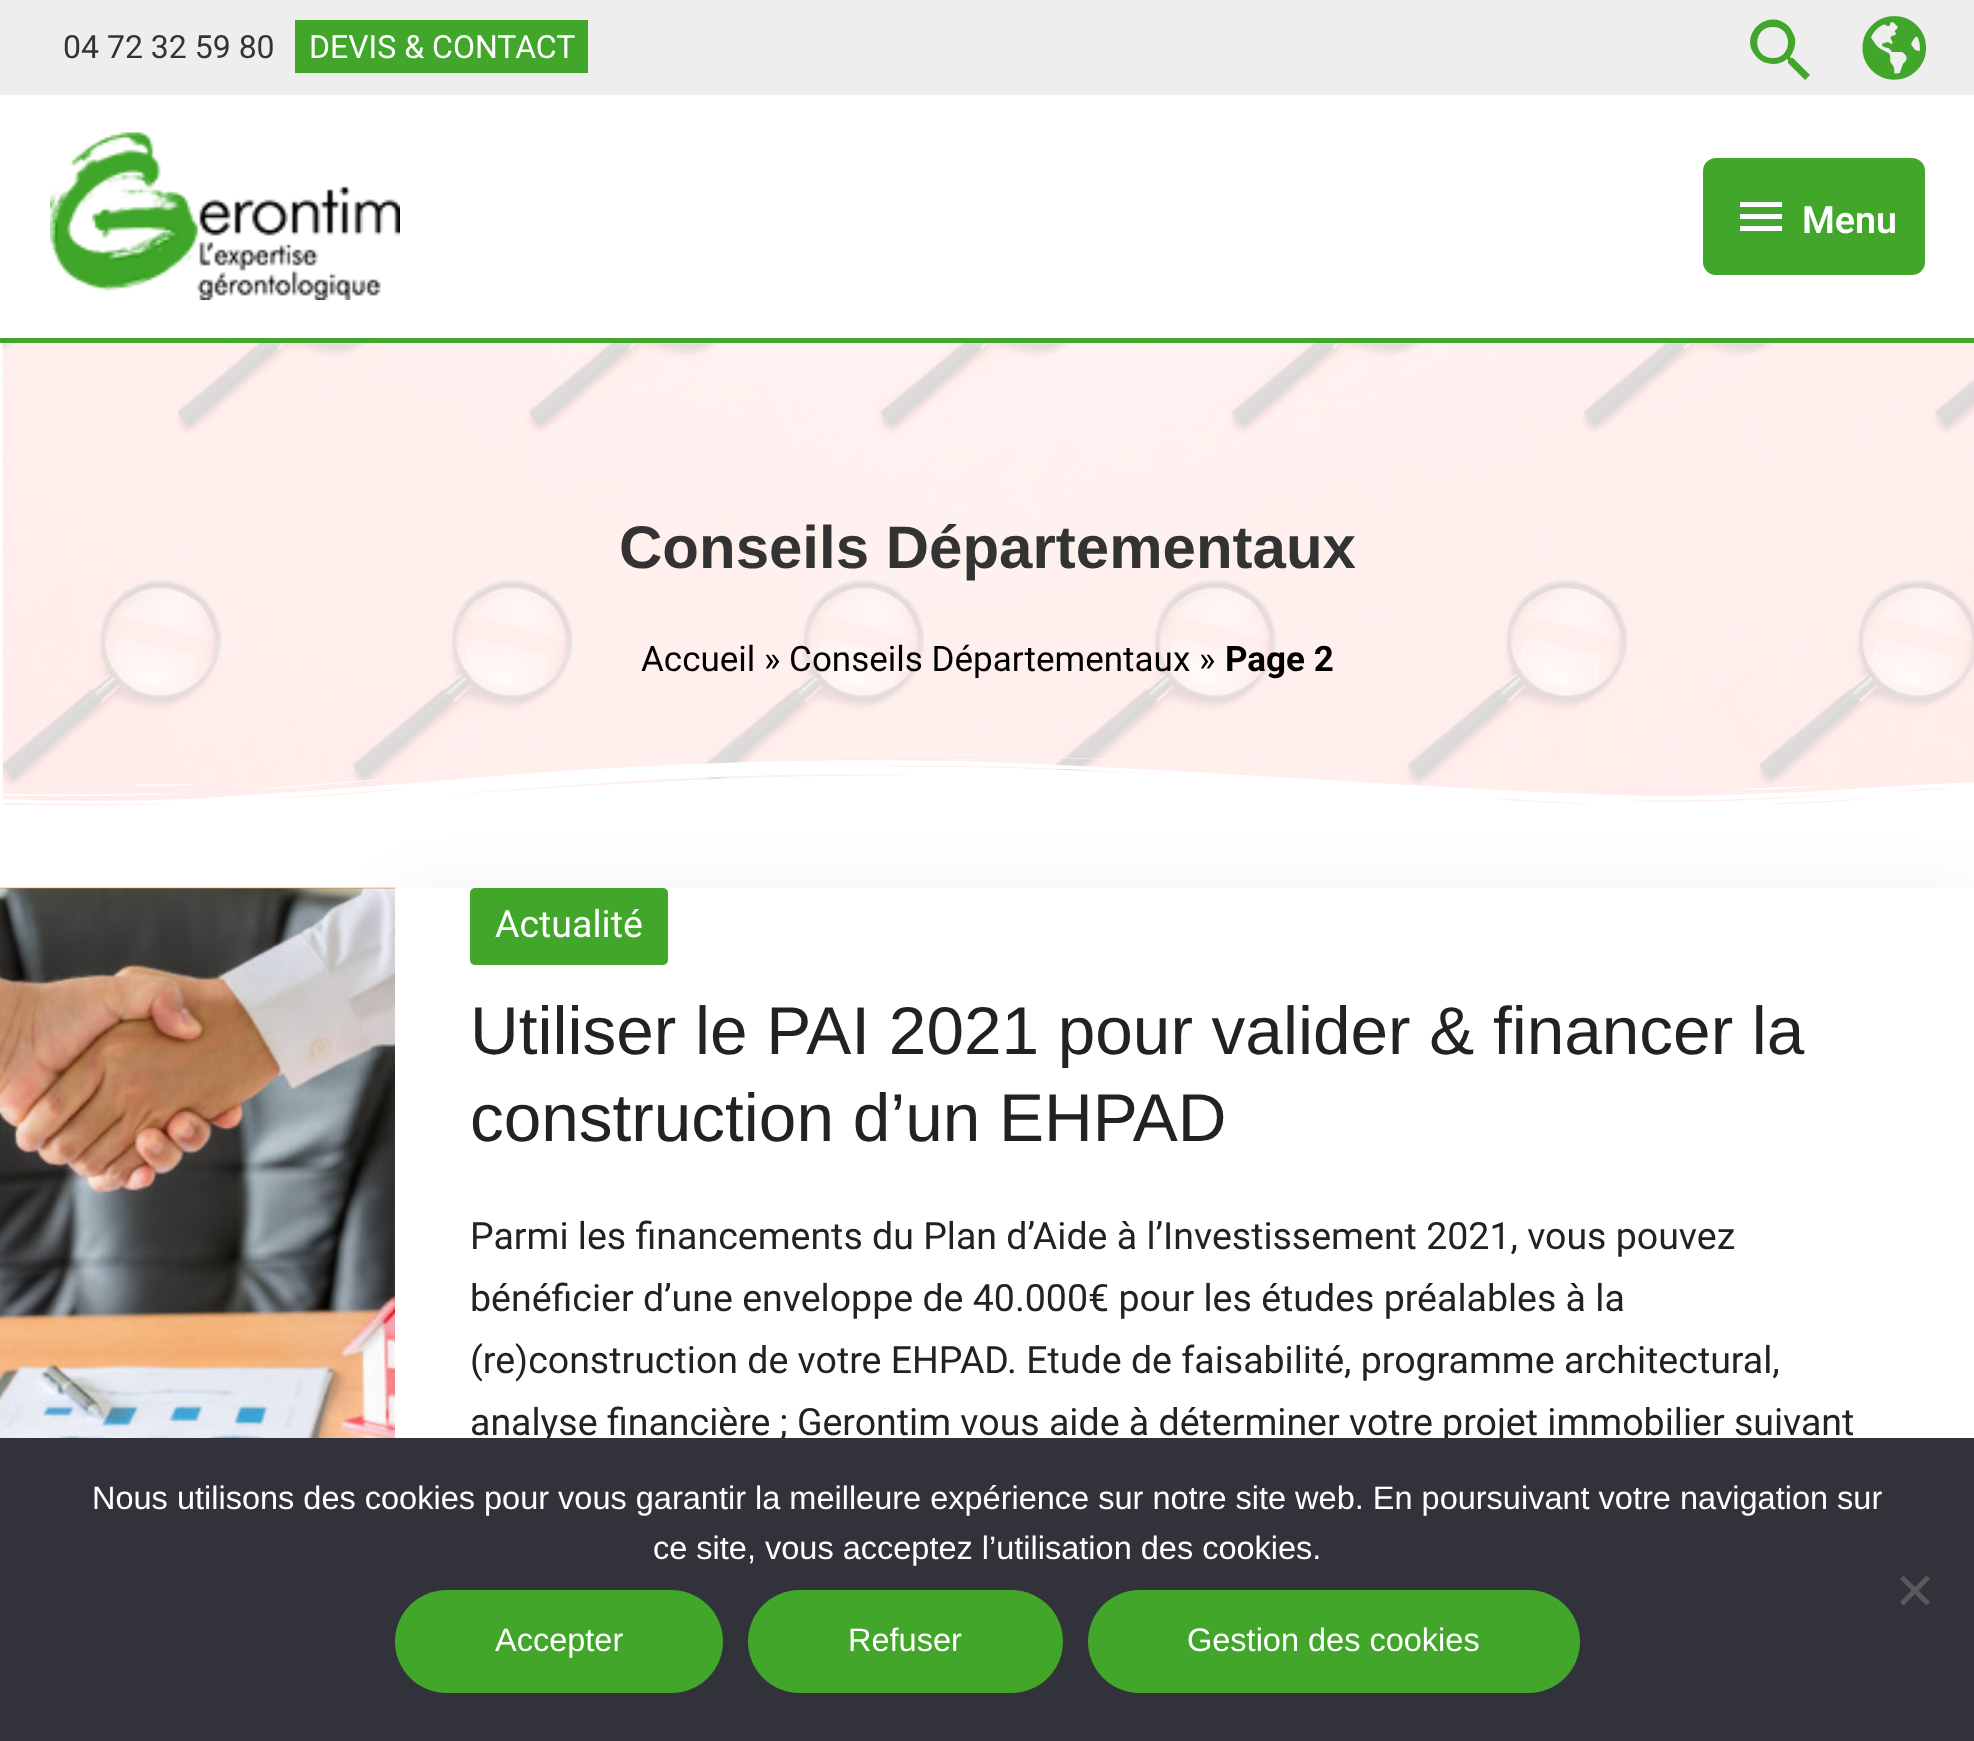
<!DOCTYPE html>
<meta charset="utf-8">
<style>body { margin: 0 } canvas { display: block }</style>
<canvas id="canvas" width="1974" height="1741"></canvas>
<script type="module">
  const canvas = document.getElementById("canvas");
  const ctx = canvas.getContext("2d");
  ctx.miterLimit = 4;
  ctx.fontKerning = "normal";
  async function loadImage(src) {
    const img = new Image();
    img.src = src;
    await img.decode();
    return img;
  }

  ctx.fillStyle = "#ffffff";
  ctx.fillRect(0, 0, 1974, 1741);
  ctx.fillStyle = "#eeeeee";
  ctx.fillRect(0, 0, 1974, 95);
  ctx.font = "32px Roboto";
  ctx.fillStyle = "#333333";
  ctx.fillText("04 72 32 59 80", 63, 58);
  ctx.fillStyle = "#41a62a";
  ctx.fillRect(295, 20, 293, 53);
  ctx.fillStyle = "#ffffff";
  ctx.fillText("DEVIS & CONTACT", 309, 58);
  ctx.fillStyle = "#41a62a";
  ctx.beginPath();
  ctx.moveTo(1773, 58);
  ctx.bezierCurveTo(1793, 58, 1793, 27, 1773, 27);
  ctx.bezierCurveTo(1752, 27, 1752, 58, 1773, 58);
  ctx.closePath();
  ctx.moveTo(1793, 58);
  ctx.lineTo(1810, 75);
  ctx.lineTo(1805, 80);
  ctx.lineTo(1788, 63);
  ctx.lineTo(1788, 60);
  ctx.lineTo(1787, 59);
  ctx.bezierCurveTo(1778, 67, 1762, 65, 1755, 55);
  ctx.bezierCurveTo(1739, 35, 1766, 9, 1786, 24);
  ctx.bezierCurveTo(1790, 27, 1793, 32, 1795, 38);
  ctx.bezierCurveTo(1796, 44, 1794, 51, 1790, 57);
  ctx.lineTo(1791, 58);
  ctx.closePath();
  ctx.fill();
  ctx.drawImage(await loadImage("img1.png"), 1862, 16, 65, 64);
  ctx.fillRect(0, 338, 1974, 5);
  ctx.drawImage(await loadImage("img2.png"), 50, 132, 350, 168);
  ctx.beginPath();
  ctx.roundRect(1703, 158, 222, 117, 13);
  ctx.fill();
  ctx.fillStyle = "#ffffff";
  ctx.beginPath();
  ctx.moveTo(1740, 202);
  ctx.lineTo(1782, 202);
  ctx.lineTo(1782, 207);
  ctx.lineTo(1740, 207);
  ctx.closePath();
  ctx.moveTo(1740, 219);
  ctx.lineTo(1740, 214);
  ctx.lineTo(1782, 214);
  ctx.lineTo(1782, 219);
  ctx.closePath();
  ctx.moveTo(1740, 231);
  ctx.lineTo(1740, 226);
  ctx.lineTo(1782, 226);
  ctx.lineTo(1782, 231);
  ctx.closePath();
  ctx.fill();
  ctx.font = "600 37.5px Roboto";
  ctx.fillText("Menu", 1802, 233);
  ctx.drawImage(await loadImage("img3.png"), 0, 343, 1974, 463);
  ctx.font = "bold 60px Liberation Sans";
  ctx.fillStyle = "#333333";
  ctx.fillText("Conseils Départementaux", 619, 568);
  ctx.font = "35px Roboto";
  ctx.fillStyle = "#000000";
  ctx.fillText("Accueil » Conseils Départementaux »", 641, 671);
  ctx.font = "bold 35px Roboto";
  ctx.fillText("Page 2", 1225, 671);
  ctx.drawImage(await loadImage("img4.png"), 0, 753, 1974, 60);
  ctx.drawImage(await loadImage("img5.png"), 0, 887, 395, 551);
  ctx.fillStyle = "rgba(0, 0, 0, 0.05)";
  ctx.filter = "blur(31px)";
  ctx.beginPath();
  ctx.rect(395, 890, 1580, 678);
  ctx.fill();
  ctx.filter = "none";
  ctx.fillStyle = "#ffffff";
  ctx.fillRect(395, 888, 1579, 550);
  ctx.fillStyle = "#41a62a";
  ctx.beginPath();
  ctx.roundRect(470, 888, 198, 77, 5);
  ctx.fill();
  ctx.font = "37.5px Roboto";
  ctx.fillStyle = "#ffffff";
  ctx.fillText("Actualité", 495, 937);
  ctx.font = "67.5px Liberation Sans";
  ctx.fillStyle = "#222222";
  ctx.fillText("Utiliser le PAI 2021 pour valider & financer la", 470, 1054);
  ctx.fillText("construction d’un EHPAD", 470, 1141);
  ctx.font = "37.5px Roboto";
  ctx.fillText("Parmi les financements du Plan d’Aide à l’Investissement 2021, vous pouvez", 470, 1249);
  ctx.fillText("bénéficier d’une enveloppe de 40.000€ pour les études préalables à la", 470, 1311);
  ctx.fillText("(re)construction de votre EHPAD. Etude de faisabilité, programme architectural,", 470, 1373);
  ctx.fillText("analyse financière ; Gerontim vous aide à déterminer votre projet immobilier suivant", 470, 1435);
  ctx.fillStyle = "#32323a";
  ctx.fillRect(0, 1438, 1974, 303);
  ctx.font = "32.5px Liberation Sans";
  ctx.fillStyle = "#ffffff";
  ctx.fillText("Nous utilisons des cookies pour vous garantir la meilleure expérience sur notre site web. En poursuivant votre navigation sur", 92, 1509);
  ctx.fillText("ce site, vous acceptez l’utilisation des cookies.", 653, 1559);
  ctx.fillStyle = "#59595d";
  ctx.beginPath();
  ctx.moveTo(1926.5, 1575.5);
  ctx.lineTo(1930, 1579);
  ctx.lineTo(1903.5, 1605.5);
  ctx.lineTo(1900, 1602);
  ctx.closePath();
  ctx.fill();
  ctx.beginPath();
  ctx.moveTo(1900, 1579);
  ctx.lineTo(1903.5, 1575.5);
  ctx.lineTo(1930, 1602);
  ctx.lineTo(1926.5, 1605.5);
  ctx.closePath();
  ctx.fill();
  ctx.fillStyle = "#41a62a";
  ctx.beginPath();
  ctx.roundRect(395, 1590, 328, 103, 51.5);
  ctx.fill();
  ctx.fillStyle = "#ffffff";
  ctx.fillText("Accepter", 495, 1651);
  ctx.fillStyle = "#41a62a";
  ctx.beginPath();
  ctx.roundRect(748, 1590, 315, 103, 51.5);
  ctx.fill();
  ctx.fillStyle = "#ffffff";
  ctx.fillText("Refuser", 848, 1651);
  ctx.fillStyle = "#41a62a";
  ctx.beginPath();
  ctx.roundRect(1088, 1590, 492, 103, 51.5);
  ctx.fill();
  ctx.fillStyle = "#ffffff";
  ctx.fillText("Gestion des cookies", 1187, 1651);
</script>
